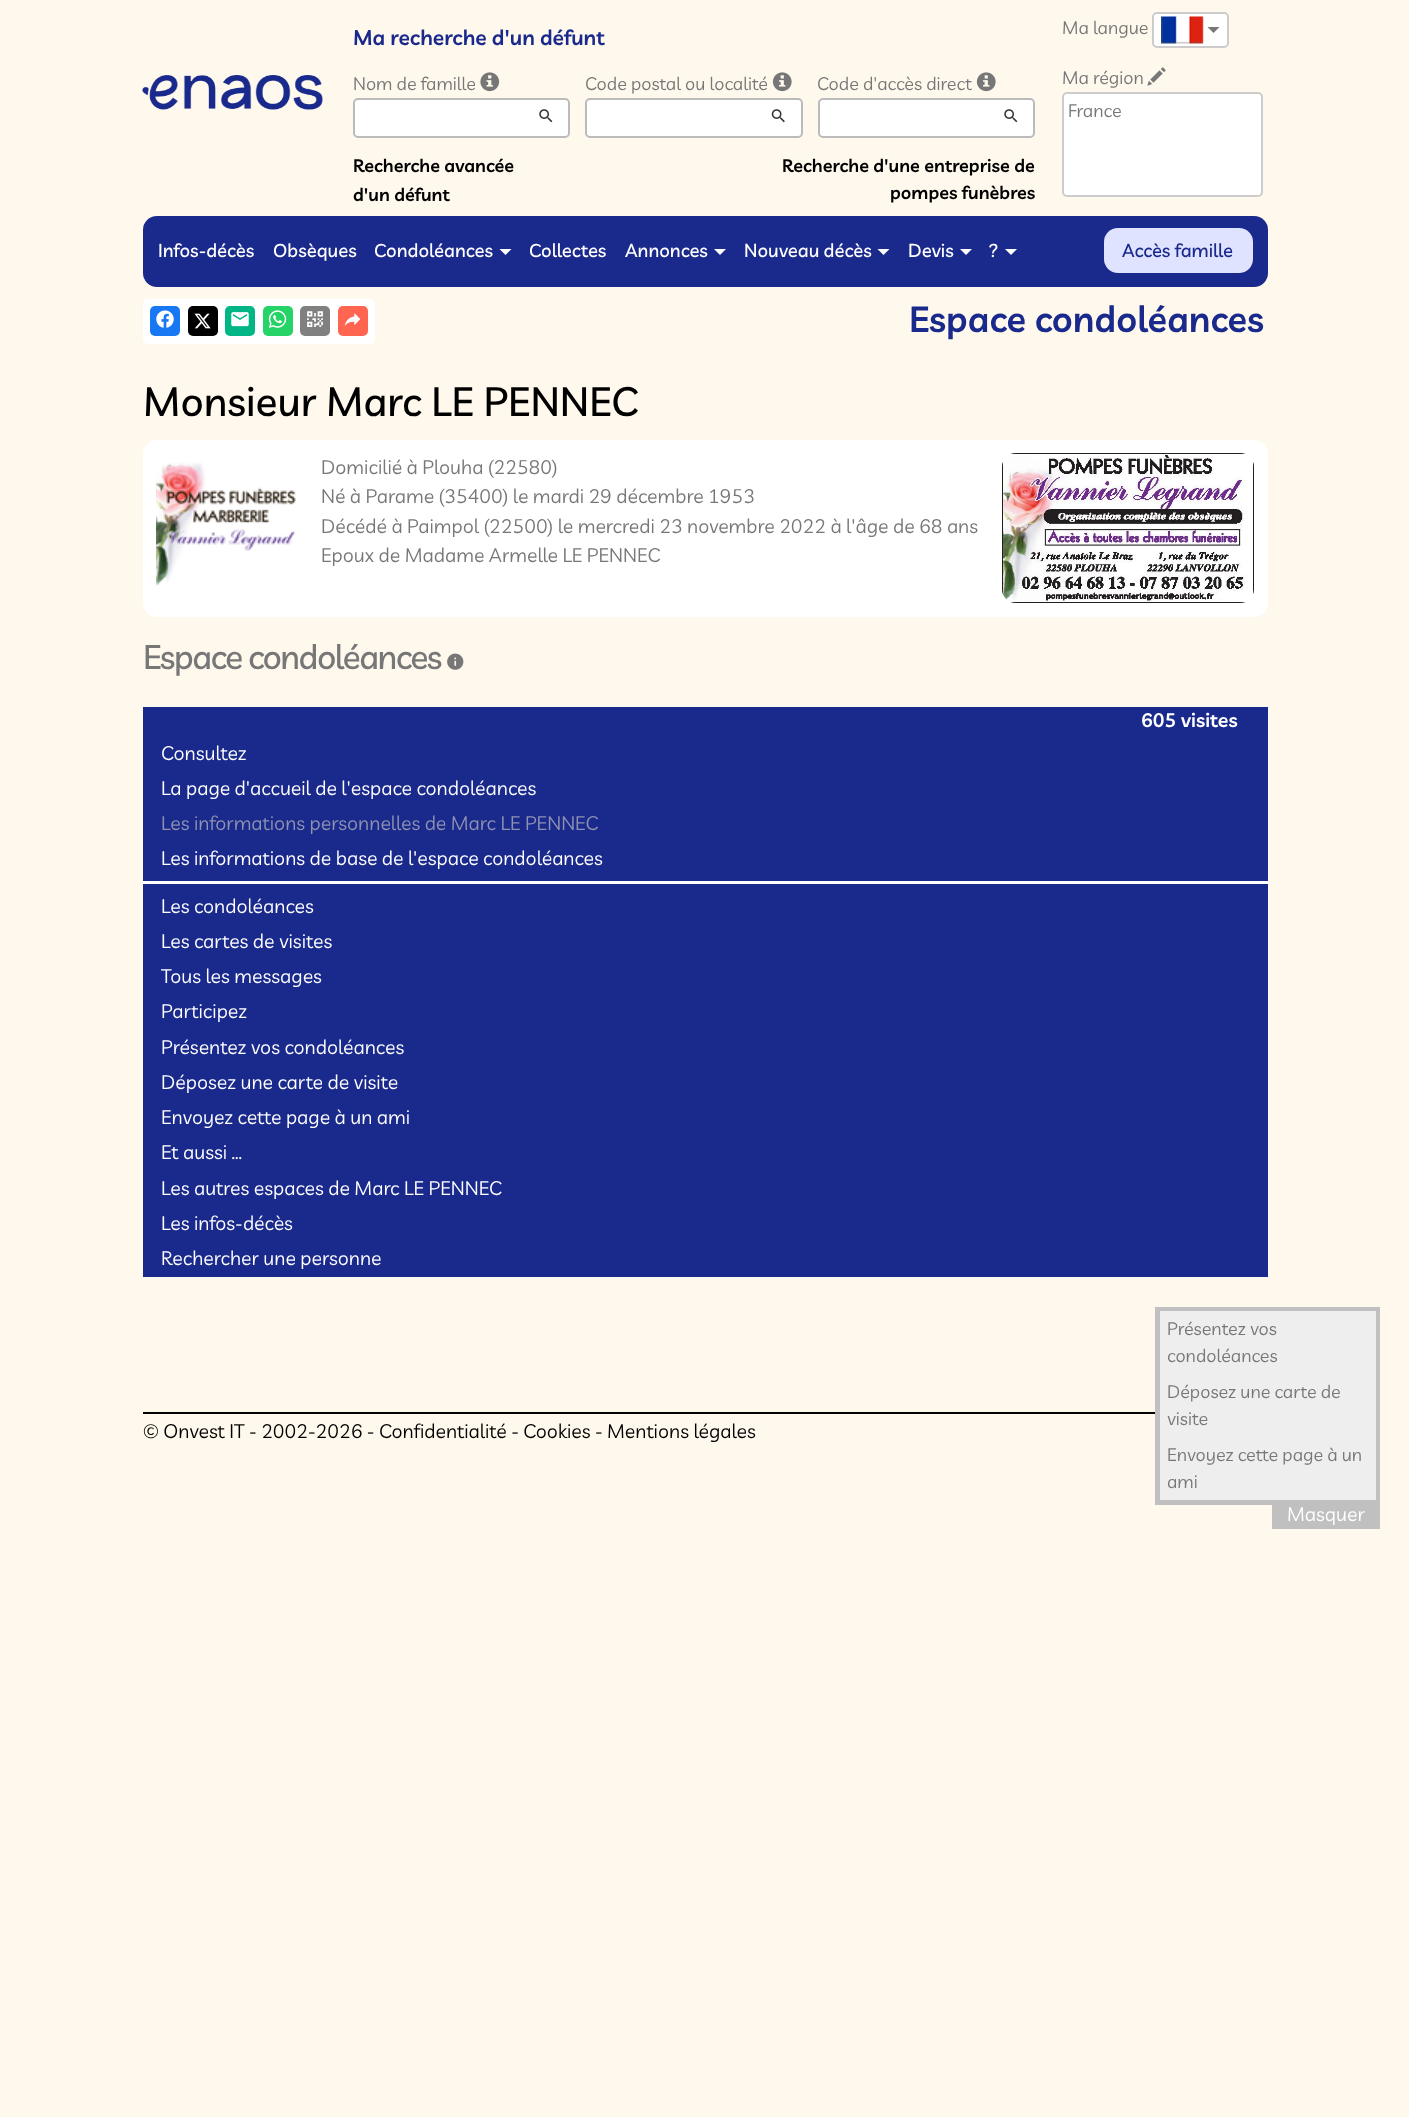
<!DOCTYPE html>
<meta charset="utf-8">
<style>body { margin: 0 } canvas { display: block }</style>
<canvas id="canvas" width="1409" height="2117"></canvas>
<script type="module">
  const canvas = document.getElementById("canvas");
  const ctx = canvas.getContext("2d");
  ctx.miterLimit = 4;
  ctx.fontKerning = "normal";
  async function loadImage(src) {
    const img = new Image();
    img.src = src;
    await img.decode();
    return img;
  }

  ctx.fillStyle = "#fff8ed";
  ctx.fillRect(0, 0, 1409, 2117);
  ctx.drawImage(await loadImage("img1.png"), 142, 75, 181, 35);
  ctx.font = "600 21px Livvic";
  ctx.fillStyle = "#1a298c";
  ctx.fillText("Ma recherche d'un défunt", 353, 45);
  ctx.font = "18px Livvic";
  ctx.fillStyle = "#777777";
  ctx.fillText("Nom de famille", 353, 90);
  ctx.drawImage(await loadImage("img2.png"), 480, 72, 20, 20);
  ctx.fillStyle = "#ffffff";
  ctx.beginPath();
  ctx.roundRect(354, 99, 215, 38, 4);
  ctx.fill();
  ctx.strokeStyle = "#bbbbbb";
  ctx.lineWidth = 2;
  ctx.stroke();
  ctx.drawImage(await loadImage("img3.png"), 539, 109, 14, 14);
  ctx.fillStyle = "#777777";
  ctx.fillText("Code postal ou localité", 585, 90);
  ctx.drawImage(await loadImage("img4.png"), 772, 72, 20, 20);
  ctx.fillStyle = "#ffffff";
  ctx.beginPath();
  ctx.roundRect(586, 99, 216, 38, 4);
  ctx.fill();
  ctx.stroke();
  ctx.drawImage(await loadImage("img5.png"), 771, 109, 14, 14);
  ctx.fillStyle = "#777777";
  ctx.fillText("Code d'accès direct", 817, 90);
  ctx.drawImage(await loadImage("img4.png"), 976, 72, 20, 20);
  ctx.fillStyle = "#ffffff";
  ctx.beginPath();
  ctx.roundRect(819, 99, 215, 38, 4);
  ctx.fill();
  ctx.stroke();
  ctx.drawImage(await loadImage("img3.png"), 1004, 109, 14, 14);
  ctx.font = "600 18px Livvic";
  ctx.fillStyle = "#000000";
  ctx.fillText("Recherche avancée", 353, 172);
  ctx.fillText("d'un défunt", 353, 201);
  ctx.fillText("Recherche d'une entreprise de", 782, 172);
  ctx.fillText("pompes funèbres", 890, 199);
  ctx.font = "18px Livvic";
  ctx.fillStyle = "#777777";
  ctx.fillText("Ma langue", 1062, 34);
  ctx.fillStyle = "#ffffff";
  ctx.beginPath();
  ctx.roundRect(1153, 13, 75, 34, 4);
  ctx.fill();
  ctx.strokeStyle = "#cccccc";
  ctx.stroke();
  ctx.drawImage(await loadImage("img6.png"), 1161, 16, 43, 28);
  ctx.fillStyle = "#777777";
  ctx.beginPath();
  ctx.moveTo(1207.5, 27);
  ctx.lineTo(1219.5, 27);
  ctx.lineTo(1213.5, 33);
  ctx.closePath();
  ctx.fill();
  ctx.fillText("Ma région", 1062, 84);
  ctx.drawImage(await loadImage("img7.png"), 1147, 67, 19, 19);
  ctx.fillStyle = "#ffffff";
  ctx.beginPath();
  ctx.roundRect(1063, 93, 199, 103, 4);
  ctx.fill();
  ctx.stroke();
  ctx.fillStyle = "#777777";
  ctx.fillText("France", 1068, 117);
  ctx.fillStyle = "#1a298c";
  ctx.beginPath();
  ctx.roundRect(143, 216, 1125, 71, 14);
  ctx.fill();
  ctx.font = "500 18.5px Livvic";
  ctx.fillStyle = "#ffffff";
  ctx.fillText("Infos-décès", 158, 257);
  ctx.fillText("Obsèques", 273, 257);
  ctx.fillText("Condoléances", 374, 257);
  ctx.beginPath();
  ctx.moveTo(499.5, 249);
  ctx.lineTo(511.5, 249);
  ctx.lineTo(505.5, 255);
  ctx.closePath();
  ctx.fill();
  ctx.fillText("Collectes", 529, 257);
  ctx.fillText("Annonces", 625, 257);
  ctx.beginPath();
  ctx.moveTo(714, 249);
  ctx.lineTo(726, 249);
  ctx.lineTo(720, 255);
  ctx.closePath();
  ctx.fill();
  ctx.fillText("Nouveau décès", 744, 257);
  ctx.beginPath();
  ctx.moveTo(877.5, 249);
  ctx.lineTo(889.5, 249);
  ctx.lineTo(883.5, 255);
  ctx.closePath();
  ctx.fill();
  ctx.fillText("Devis", 908, 257);
  ctx.beginPath();
  ctx.moveTo(960, 249);
  ctx.lineTo(972, 249);
  ctx.lineTo(966, 255);
  ctx.closePath();
  ctx.fill();
  ctx.fillText("?", 989, 257);
  ctx.beginPath();
  ctx.moveTo(1005, 249);
  ctx.lineTo(1017, 249);
  ctx.lineTo(1011, 255);
  ctx.closePath();
  ctx.fill();
  ctx.fillStyle = "#dfe3ff";
  ctx.beginPath();
  ctx.roundRect(1104, 228, 149, 45, 14);
  ctx.fill();
  ctx.fillStyle = "#1a298c";
  ctx.fillText("Accès famille", 1122, 257);
  ctx.fillStyle = "#ffffff";
  ctx.beginPath();
  ctx.roundRect(143, 299, 232, 45, 5);
  ctx.fill();
  ctx.fillStyle = "#1877f2";
  ctx.beginPath();
  ctx.roundRect(150, 306, 30, 30, 5);
  ctx.fill();
  ctx.drawImage(await loadImage("img8.png"), 156, 310, 18, 18);
  ctx.fillStyle = "#000000";
  ctx.beginPath();
  ctx.roundRect(188, 306, 30, 30, 5);
  ctx.fill();
  ctx.drawImage(await loadImage("img9.png"), 194, 313, 17, 16);
  ctx.fillStyle = "#00b685";
  ctx.beginPath();
  ctx.roundRect(225, 306, 30, 30, 5);
  ctx.fill();
  ctx.drawImage(await loadImage("img10.png"), 231, 312, 18, 15);
  ctx.fillStyle = "#25d366";
  ctx.beginPath();
  ctx.roundRect(263, 306, 30, 30, 5);
  ctx.fill();
  ctx.drawImage(await loadImage("img11.png"), 268, 310, 19, 18);
  ctx.fillStyle = "#808080";
  ctx.beginPath();
  ctx.roundRect(300, 306, 30, 30, 5);
  ctx.fill();
  ctx.drawImage(await loadImage("img12.png"), 307, 311, 16, 16);
  ctx.fillStyle = "#ff6550";
  ctx.beginPath();
  ctx.roundRect(338, 306, 30, 30, 5);
  ctx.fill();
  ctx.drawImage(await loadImage("img13.png"), 344, 313, 17, 13);
  ctx.font = "600 36px Livvic";
  ctx.fillStyle = "#1a298c";
  ctx.fillText("Espace condoléances", 909, 332);
  ctx.font = "500 40.5px Livvic";
  ctx.fillStyle = "#000000";
  ctx.fillText("Monsieur Marc LE PENNEC", 143, 416);
  ctx.fillStyle = "#ffffff";
  ctx.beginPath();
  ctx.roundRect(143, 440, 1125, 177, 14);
  ctx.fill();
  ctx.drawImage(await loadImage("img14.png"), 156, 462, 140, 124);
  ctx.font = "19.5px Livvic";
  ctx.fillStyle = "#777777";
  ctx.fillText("Domicilié à Plouha (22580)", 321, 474);
  ctx.fillText("Né à Parame (35400) le mardi 29 décembre 1953", 321, 503);
  ctx.fillText("Décédé à Paimpol (22500) le mercredi 23 novembre 2022 à l'âge de 68 ans", 321, 533);
  ctx.fillText("Epoux de Madame Armelle LE PENNEC", 321, 562);
  ctx.drawImage(await loadImage("img15.png"), 1002, 453, 252, 150);
  ctx.letterSpacing = "-1.5px";
  ctx.font = "500 33.75px Livvic";
  ctx.fillText("Espace condoléances", 143, 669);
  ctx.drawImage(await loadImage("img16.png"), 447, 653, 17, 17);
  ctx.fillStyle = "#1a298c";
  ctx.fillRect(143, 707, 1125, 570);
  ctx.letterSpacing = "0px";
  ctx.font = "600 19.5px Livvic";
  ctx.fillStyle = "#ffffff";
  ctx.fillText("605 visites", 1141, 727);
  ctx.font = "19.5px Livvic";
  ctx.fillText("Consultez", 161, 760);
  ctx.fillText("La page d'accueil de l'espace condoléances", 161, 795);
  ctx.fillStyle = "#8e92b0";
  ctx.fillText("Les informations personnelles de Marc LE PENNEC", 161, 830);
  ctx.fillStyle = "#ffffff";
  ctx.fillText("Les informations de base de l'espace condoléances", 161, 865);
  ctx.fillRect(143, 881, 1125, 3);
  ctx.fillText("Les condoléances", 161, 913);
  ctx.fillText("Les cartes de visites", 161, 948);
  ctx.fillText("Tous les messages", 161, 983);
  ctx.fillText("Participez", 161, 1018);
  ctx.fillText("Présentez vos condoléances", 161, 1054);
  ctx.fillText("Déposez une carte de visite", 161, 1089);
  ctx.fillText("Envoyez cette page à un ami", 161, 1124);
  ctx.fillText("Et aussi ...", 161, 1159);
  ctx.fillText("Les autres espaces de Marc LE PENNEC", 161, 1195);
  ctx.fillText("Les infos-décès", 161, 1230);
  ctx.fillText("Rechercher une personne", 161, 1265);
  ctx.fillStyle = "#c0c0c0";
  ctx.fillRect(1155, 1307, 225, 198);
  ctx.fillStyle = "#eeeeee";
  ctx.fillRect(1160, 1311, 216, 189);
  ctx.font = "18px Livvic";
  ctx.fillStyle = "#777777";
  ctx.fillText("Présentez vos", 1167, 1335);
  ctx.fillText("condoléances", 1167, 1362);
  ctx.fillText("Déposez une carte de", 1167, 1398);
  ctx.fillText("visite", 1167, 1425);
  ctx.fillText("Envoyez cette page à un", 1167, 1461);
  ctx.fillText("ami", 1167, 1488);
  ctx.fillStyle = "#c0c0c0";
  ctx.fillRect(1272, 1505, 108, 24);
  ctx.font = "19.5px Livvic";
  ctx.fillStyle = "#ffffff";
  ctx.fillText("Masquer", 1287, 1521);
  ctx.fillStyle = "#000000";
  ctx.fillRect(143, 1412, 1012, 2);
  ctx.fillText("© Onvest IT - 2002-2026 - Confidentialité - Cookies - Mentions légales", 143, 1438);
</script>
